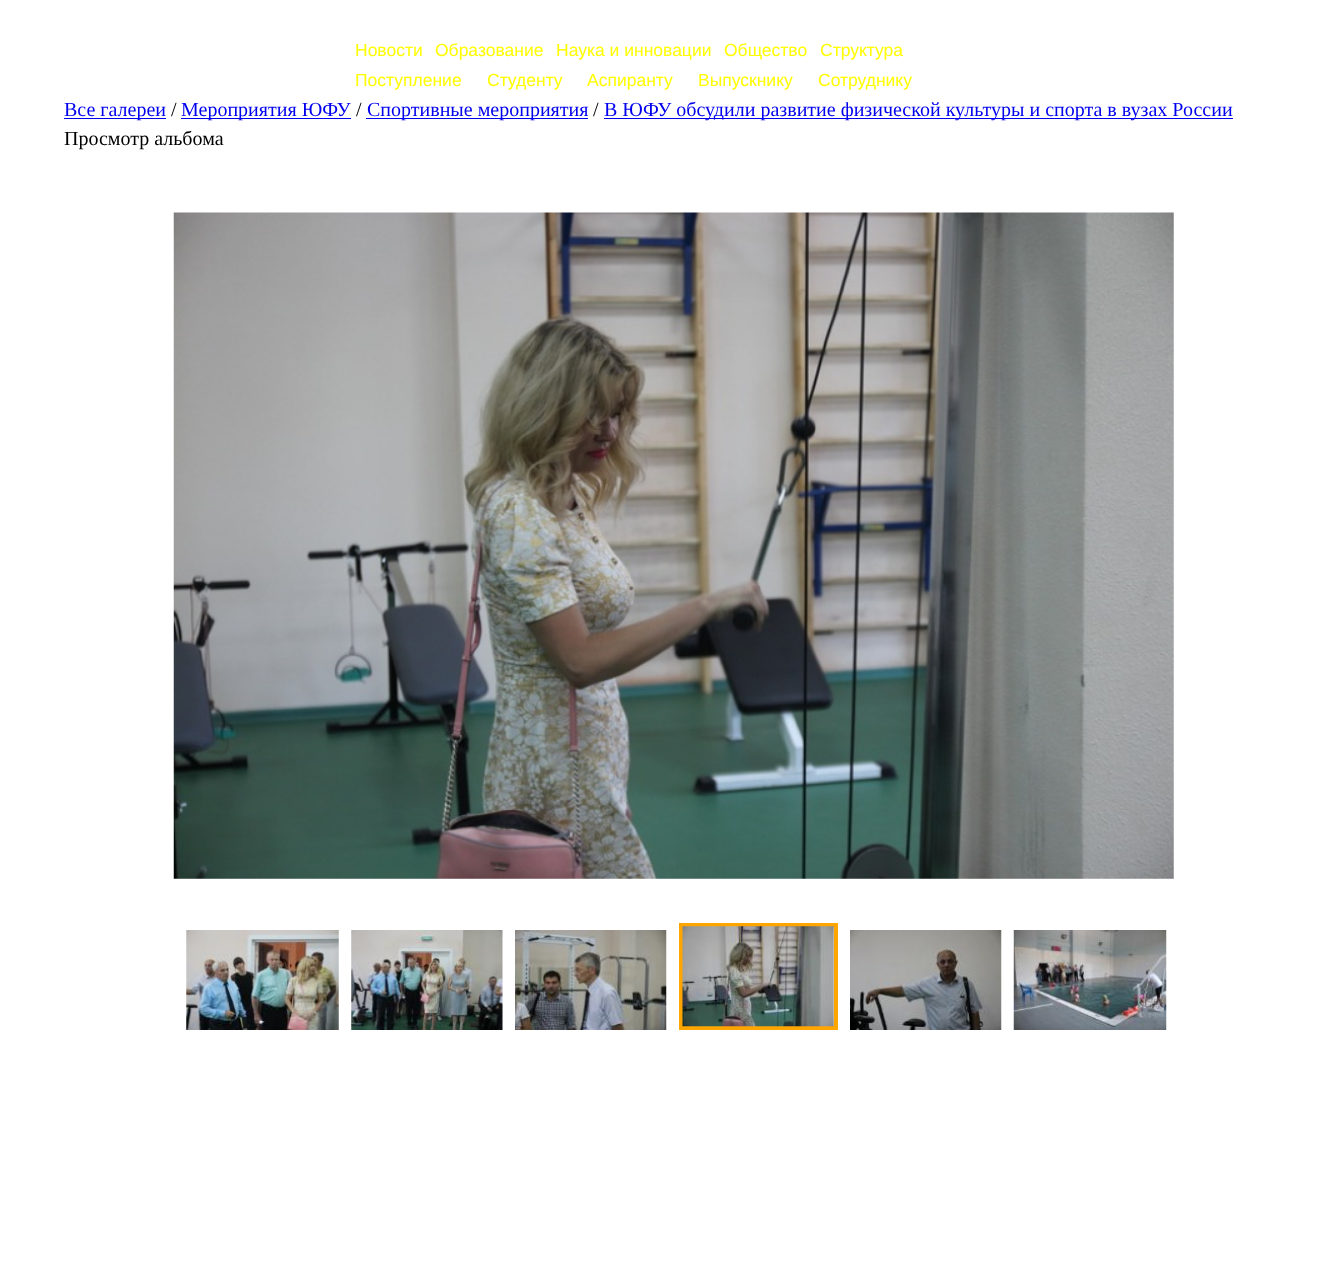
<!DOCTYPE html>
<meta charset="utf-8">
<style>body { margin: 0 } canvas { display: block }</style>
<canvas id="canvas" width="1322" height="1277"></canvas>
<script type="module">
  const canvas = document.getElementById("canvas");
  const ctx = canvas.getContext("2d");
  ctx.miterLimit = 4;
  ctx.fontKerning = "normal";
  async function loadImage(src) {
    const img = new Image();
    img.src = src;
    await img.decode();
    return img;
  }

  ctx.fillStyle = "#ffffff";
  ctx.fillRect(0, 0, 1322, 1277);
  ctx.font = "17.5px Liberation Sans";
  ctx.fillStyle = "#ffff00";
  ctx.fillText("Новости", 355, 56);
  ctx.fillText("Образование", 435, 56);
  ctx.fillText("Наука и инновации", 556, 56);
  ctx.fillText("Общество", 724, 56);
  ctx.fillText("Структура", 820, 56);
  ctx.fillText("Поступление", 355, 86);
  ctx.fillText("Студенту", 487, 86);
  ctx.fillText("Аспиранту", 587, 86);
  ctx.fillText("Выпускнику", 698, 86);
  ctx.fillText("Сотруднику", 818, 86);
  ctx.fillStyle = "#0000ee";
  ctx.fillRect(64, 118, 102, 1);
  ctx.font = "20px Liberation Serif";
  ctx.fillText("Все галереи", 64, 116);
  ctx.fillStyle = "#000000";
  ctx.fillText("/", 171, 116);
  ctx.fillStyle = "#0000ee";
  ctx.fillRect(181, 118, 170, 1);
  ctx.fillText("Мероприятия ЮФУ", 181, 116);
  ctx.fillStyle = "#000000";
  ctx.fillText("/", 356, 116);
  ctx.fillStyle = "#0000ee";
  ctx.fillRect(366, 118, 222, 1);
  ctx.fillText("Спортивные мероприятия", 367, 116);
  ctx.fillStyle = "#000000";
  ctx.fillText("/", 593, 116);
  ctx.fillStyle = "#0000ee";
  ctx.fillRect(604, 118, 629, 1);
  ctx.fillText("В ЮФУ обсудили развитие физической культуры и спорта в вузах России", 604, 116);
  ctx.fillStyle = "#000000";
  ctx.fillText("Просмотр альбома", 64, 145);
  ctx.drawImage(await loadImage("img1.png"), 173, 212, 1001, 667);
  ctx.strokeStyle = "#ffa500";
  ctx.lineWidth = 4;
  ctx.strokeRect(681, 925, 155, 103);
  ctx.drawImage(await loadImage("img2.png"), 186, 930, 153, 100);
  ctx.drawImage(await loadImage("img3.png"), 351, 930, 152, 100);
  ctx.drawImage(await loadImage("img4.png"), 515, 930, 152, 100);
  ctx.drawImage(await loadImage("img5.png"), 682, 926, 152, 101);
  ctx.drawImage(await loadImage("img6.png"), 850, 930, 152, 100);
  ctx.drawImage(await loadImage("img7.png"), 1013, 930, 154, 100);
</script>
